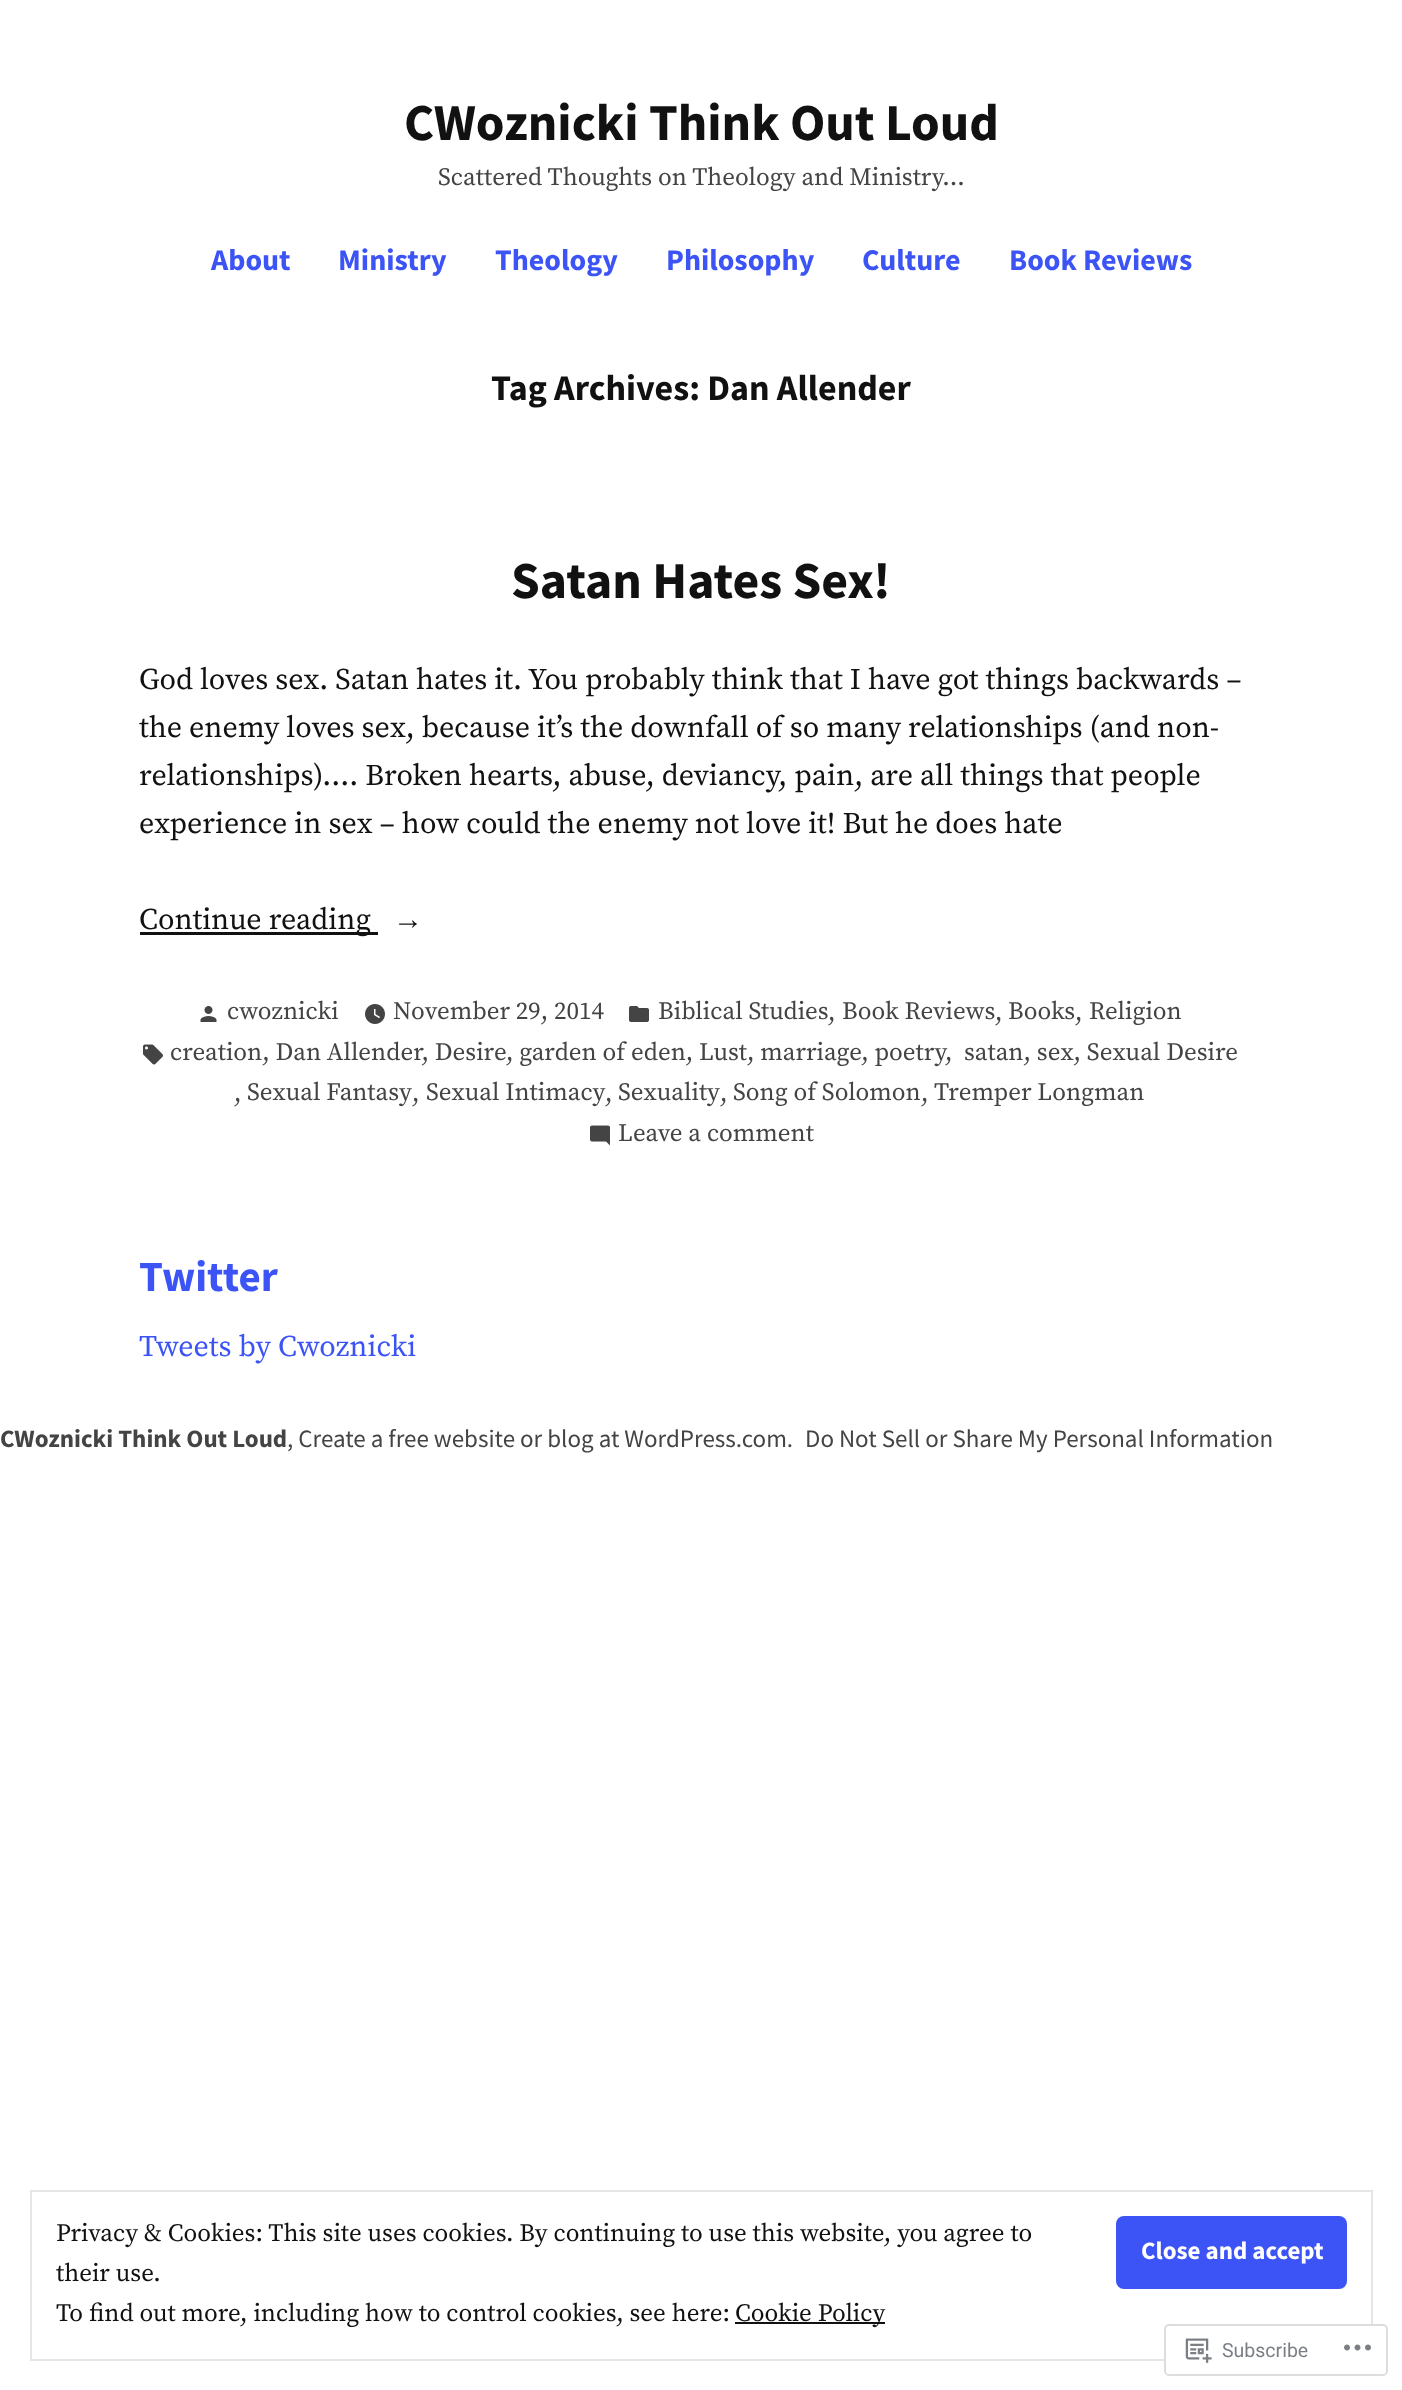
<!DOCTYPE html>
<meta charset="utf-8">
<style>body { margin: 0 } canvas { display: block }</style>
<canvas id="canvas" width="1402" height="2390"></canvas>
<script type="module">
  const canvas = document.getElementById("canvas");
  const ctx = canvas.getContext("2d");
  ctx.miterLimit = 4;
  ctx.fontKerning = "normal";
  async function loadImage(src) {
    const img = new Image();
    img.src = src;
    await img.decode();
    return img;
  }

  ctx.fillStyle = "#ffffff";
  ctx.fillRect(0, 0, 1402, 2390);
  ctx.font = "bold 51.8px Source Sans Pro";
  ctx.fillStyle = "#111111";
  ctx.fillText("CWoznicki Think Out Loud", 404, 140);
  ctx.font = "25px Source Serif Pro";
  ctx.fillStyle = "#444444";
  ctx.fillText("Scattered Thoughts on Theology and Ministry…", 438, 185);
  ctx.font = "bold 30px Source Sans Pro";
  ctx.fillStyle = "#3c54f5";
  ctx.fillText("About", 211, 270);
  ctx.fillText("Ministry", 338, 270);
  ctx.fillText("Theology", 495, 270);
  ctx.fillText("Philosophy", 666, 270);
  ctx.fillText("Culture", 862, 270);
  ctx.fillText("Book Reviews", 1009, 270);
  ctx.font = "bold 36px Source Sans Pro";
  ctx.fillStyle = "#111111";
  ctx.fillText("Tag Archives: Dan Allender", 491, 400);
  ctx.font = "bold 51.8px Source Sans Pro";
  ctx.fillText("Satan Hates Sex!", 511, 598);
  ctx.font = "30px Source Serif Pro";
  ctx.fillText("God loves sex. Satan hates it. You probably think that I have got things backwards –", 139, 689);
  ctx.fillText("the enemy loves sex, because it’s the downfall of so many relationships (and non-", 139, 737);
  ctx.fillText("relationships)…. Broken hearts, abuse, deviancy, pain, are all things that people", 139, 785);
  ctx.fillText("experience in sex – how could the enemy not love it! But he does hate", 139, 833);
  ctx.fillRect(140, 932, 238, 3);
  ctx.fillText("Continue reading", 139, 929);
  ctx.font = "30px Liberation Serif";
  ctx.fillText("→", 393, 929);
  ctx.drawImage(await loadImage("img1.png"), 200, 1006, 17, 16);
  ctx.font = "25px Source Serif Pro";
  ctx.fillStyle = "#444444";
  ctx.fillText("cwoznicki", 227, 1019);
  ctx.drawImage(await loadImage("img2.png"), 365, 1004, 20, 20);
  ctx.fillText("November 29, 2014", 393, 1019);
  ctx.drawImage(await loadImage("img3.png"), 629, 1006, 20, 16);
  ctx.fillText("Biblical Studies", 658, 1019);
  ctx.fillText(",", 828, 1020);
  ctx.fillText("Book Reviews", 842, 1019);
  ctx.fillText(",", 995, 1020);
  ctx.fillText("Books", 1008, 1019);
  ctx.fillText(",", 1075, 1020);
  ctx.fillText("Religion", 1089, 1019);
  ctx.drawImage(await loadImage("img4.png"), 143, 1044, 20, 21);
  ctx.fillText("creation, Dan Allender, Desire, garden of eden, Lust, marriage, poetry,", 170, 1060);
  ctx.fillText("satan, sex, Sexual Desire", 964, 1060);
  ctx.fillText(",", 234, 1101);
  ctx.fillText("Sexual Fantasy", 247, 1100);
  ctx.fillText(",", 412, 1101);
  ctx.fillText("Sexual Intimacy", 426, 1100);
  ctx.fillText(",", 605, 1101);
  ctx.fillText("Sexuality", 618, 1100);
  ctx.fillText(",", 720, 1101);
  ctx.fillText("Song of Solomon", 733, 1100);
  ctx.fillText(",", 921, 1101);
  ctx.fillText("Tremper Longman", 934, 1100);
  ctx.drawImage(await loadImage("img5.png"), 590, 1125, 20, 21);
  ctx.fillText("Leave a comment", 618, 1141);
  ctx.font = "bold 43px Source Sans Pro";
  ctx.fillStyle = "#3c54f5";
  ctx.fillText("Twitter", 139, 1291);
  ctx.font = "30px Source Serif Pro";
  ctx.fillText("Tweets by Cwoznicki", 139, 1356);
  ctx.font = "bold 25px Source Sans Pro";
  ctx.fillStyle = "#444444";
  ctx.fillText("CWoznicki Think Out Loud", 0, 1447);
  ctx.font = "25px Source Sans Pro";
  ctx.fillText(", Create a free website or blog at WordPress.com.", 287, 1447);
  ctx.fillText("Do Not Sell or Share My Personal Information", 805, 1447);
  ctx.strokeStyle = "#e5e5e5";
  ctx.lineWidth = 2;
  ctx.strokeRect(31, 2191, 1341, 169);
  ctx.font = "25px Source Serif Pro";
  ctx.fillStyle = "#111111";
  ctx.fillText("Privacy & Cookies: This site uses cookies. By continuing to use this website, you agree to", 56, 2241);
  ctx.fillStyle = "#3c54f5";
  ctx.beginPath();
  ctx.roundRect(1116, 2216, 231, 73, 8);
  ctx.fill();
  ctx.font = "bold 25px Source Sans Pro";
  ctx.fillStyle = "#ffffff";
  ctx.fillText("Close and accept", 1141, 2259);
  ctx.font = "25px Source Serif Pro";
  ctx.fillStyle = "#111111";
  ctx.fillText("their use.", 56, 2281);
  ctx.fillText("To find out more, including how to control cookies, see here:", 56, 2321);
  ctx.fillRect(735, 2322, 150, 2);
  ctx.fillText("Cookie Policy", 735, 2321);
  ctx.fillStyle = "rgba(255, 255, 255, 0.98)";
  ctx.beginPath();
  ctx.roundRect(1165, 2325, 222, 50, 4);
  ctx.fill();
  ctx.strokeStyle = "#dddddf";
  ctx.stroke();
  ctx.drawImage(await loadImage("img6.png"), 1185, 2338, 27, 25);
  ctx.font = "19.5px Roboto";
  ctx.fillStyle = "#7b7f85";
  ctx.fillText("Subscribe", 1222, 2357);
  ctx.drawImage(await loadImage("img7.png"), 1344, 2344, 27, 7);
</script>
